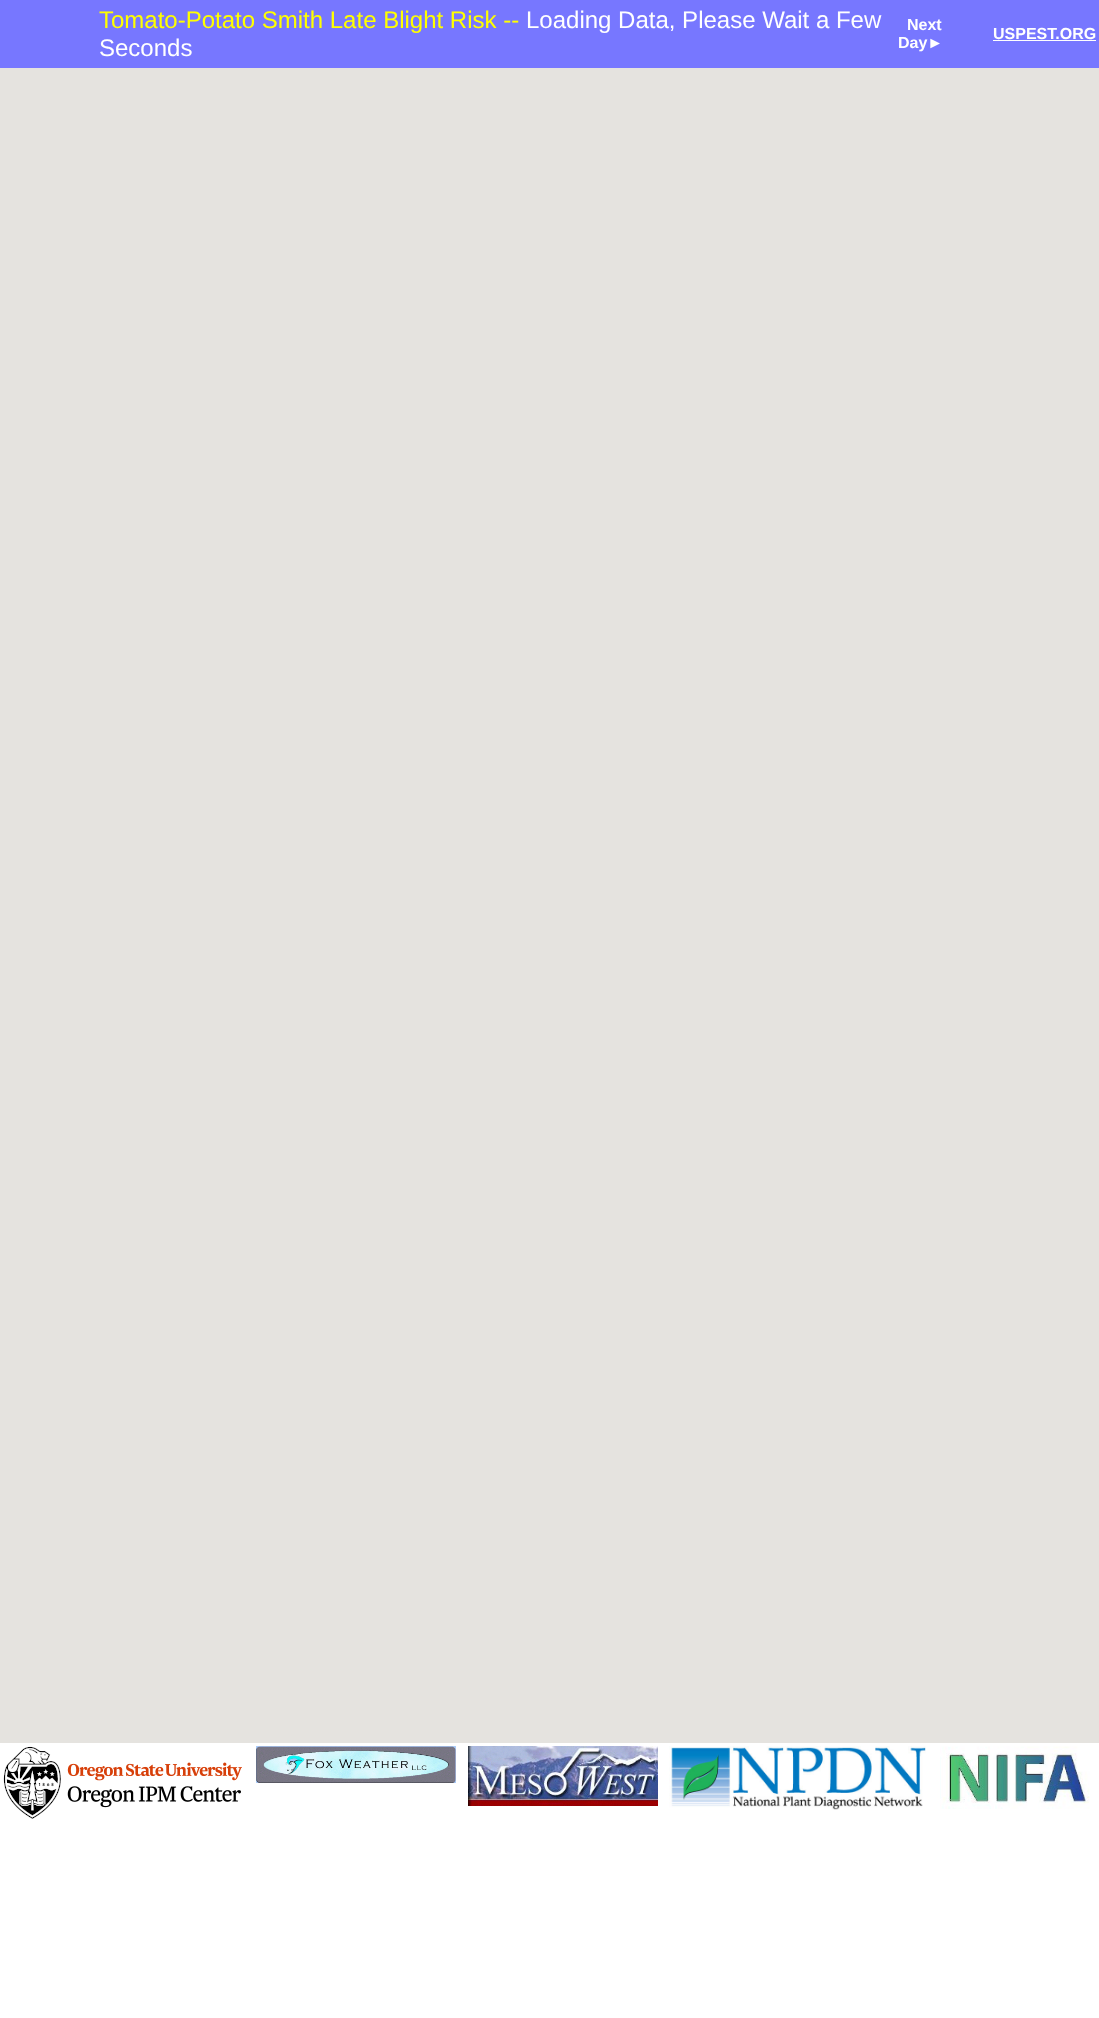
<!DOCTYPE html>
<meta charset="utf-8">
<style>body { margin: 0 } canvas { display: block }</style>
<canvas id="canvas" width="1099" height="2018"></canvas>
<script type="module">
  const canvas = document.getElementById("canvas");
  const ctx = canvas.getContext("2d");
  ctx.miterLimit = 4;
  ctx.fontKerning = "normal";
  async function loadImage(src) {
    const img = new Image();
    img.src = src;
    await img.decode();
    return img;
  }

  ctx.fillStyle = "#ffffff";
  ctx.fillRect(0, 0, 1099, 2018);
  ctx.fillStyle = "#7777ff";
  ctx.fillRect(0, 0, 1099, 68);
  ctx.font = "24px Liberation Sans";
  ctx.fillStyle = "#ffff00";
  ctx.fillText("Tomato-Potato Smith Late Blight Risk --", 99, 28);
  ctx.fillStyle = "#ffffff";
  ctx.fillText("Loading Data, Please Wait a Few", 526, 28);
  ctx.fillText("Seconds", 99, 56);
  ctx.font = "bold 16px Liberation Sans";
  ctx.fillText("Next", 907, 30);
  ctx.fillText("Day►", 898, 48);
  ctx.fillText("USPEST.ORG", 993, 39);
  ctx.fillRect(993, 40, 103, 1);
  ctx.fillStyle = "#e5e3df";
  ctx.fillRect(0, 68, 1099, 1675);
  ctx.drawImage(await loadImage("img1.png"), 3, 1746, 239, 73);
  ctx.drawImage(await loadImage("img2.png"), 256, 1746, 200, 37);
  ctx.drawImage(await loadImage("img3.png"), 468, 1746, 190, 60);
  ctx.drawImage(await loadImage("img4.png"), 669, 1746, 257, 64);
  ctx.drawImage(await loadImage("img5.png"), 940, 1746, 150, 63);
</script>
